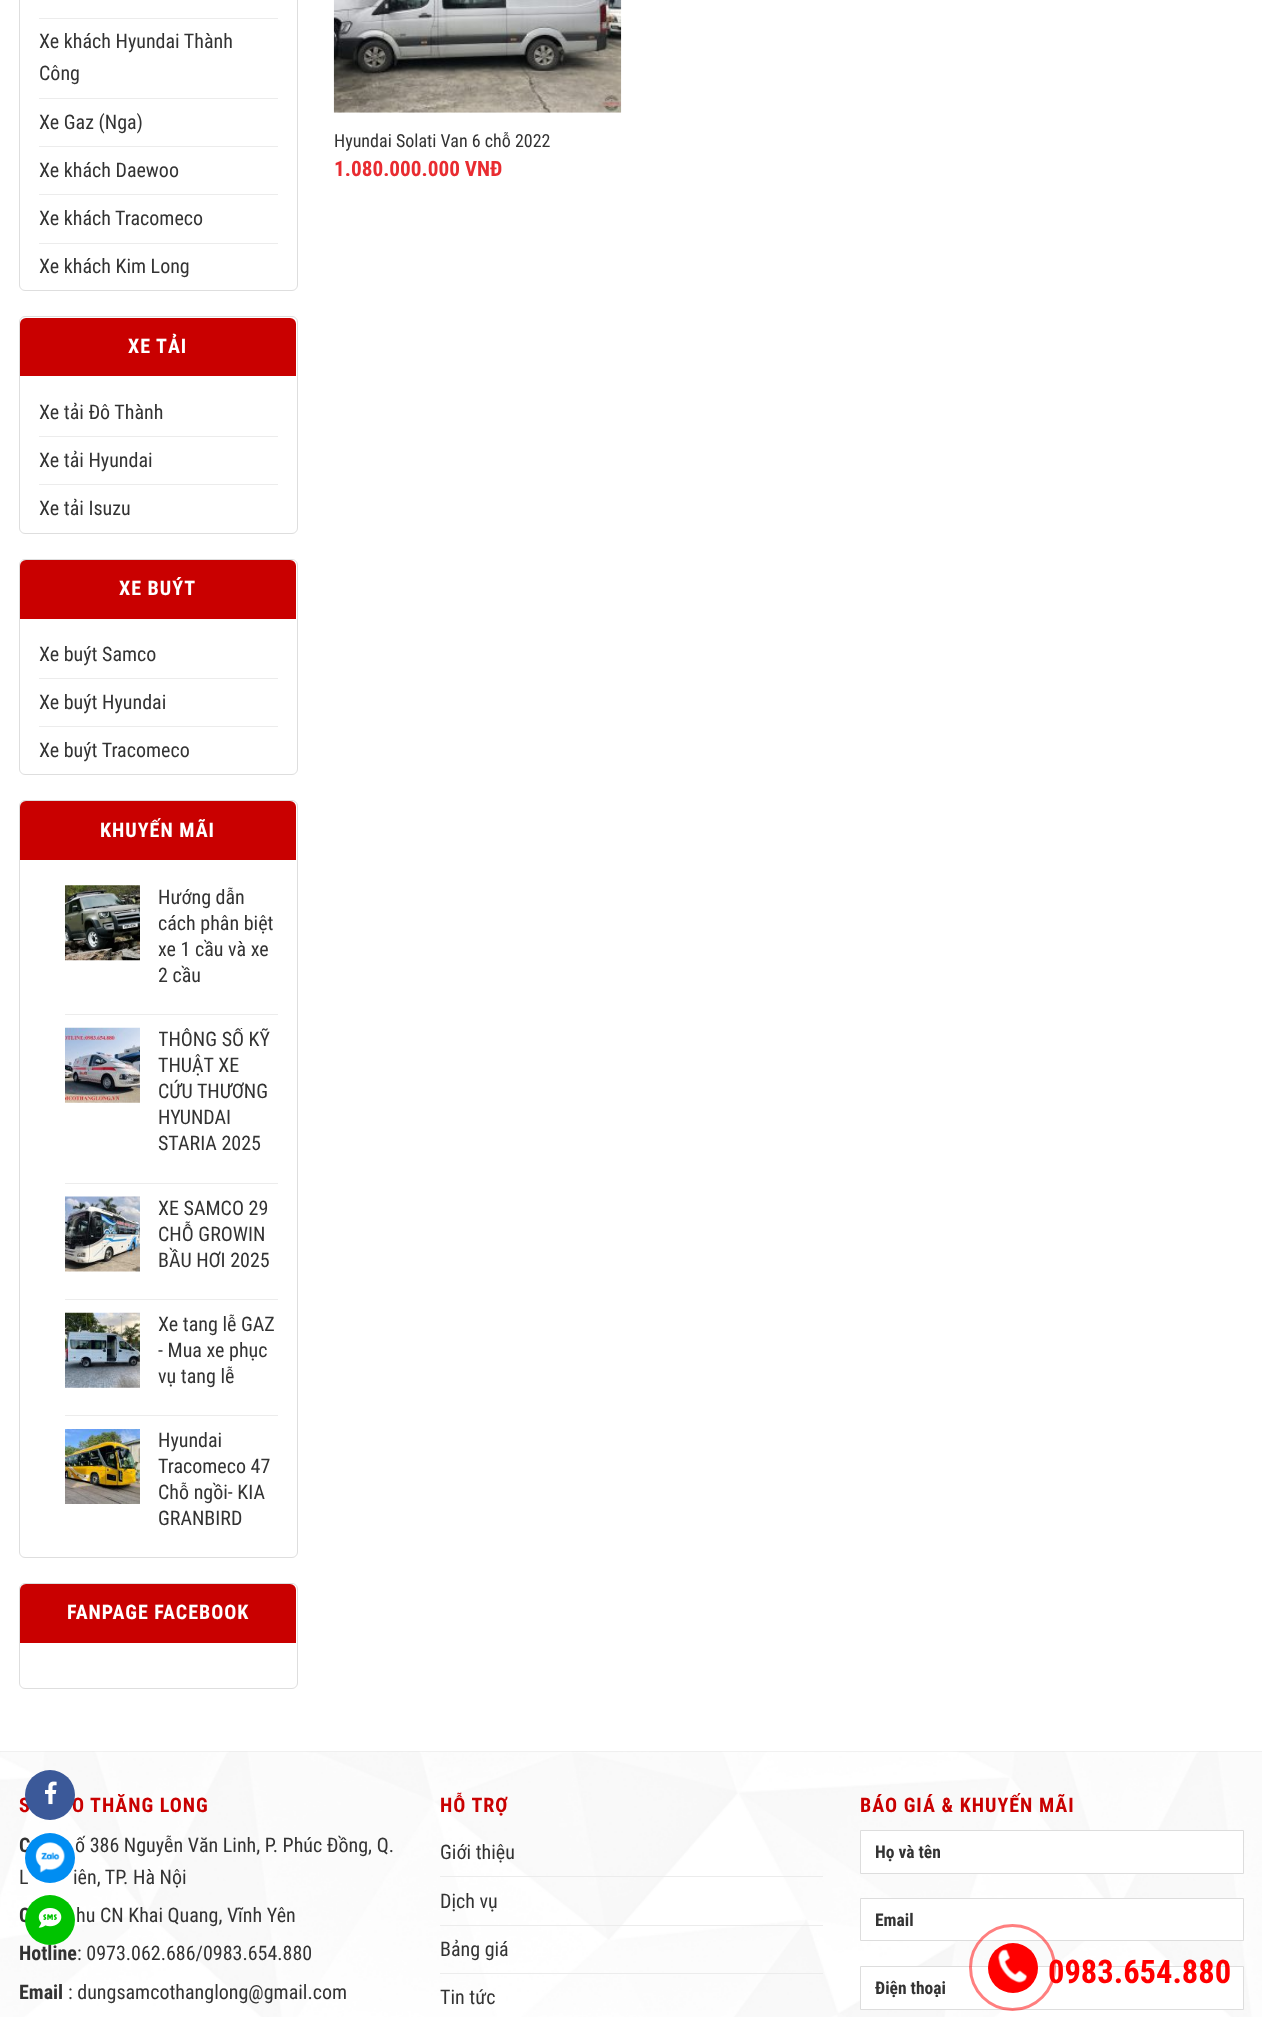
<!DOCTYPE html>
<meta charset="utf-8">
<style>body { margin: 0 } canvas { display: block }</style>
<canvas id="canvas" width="1262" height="2017"></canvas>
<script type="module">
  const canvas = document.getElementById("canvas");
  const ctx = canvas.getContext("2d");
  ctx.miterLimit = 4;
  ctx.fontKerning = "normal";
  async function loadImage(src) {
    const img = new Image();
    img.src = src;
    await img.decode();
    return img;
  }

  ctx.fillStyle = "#ffffff";
  ctx.fillRect(0, 0, 1262, 2017);
  ctx.beginPath();
  ctx.roundRect(19.5, -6.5, 278, 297, 5.5);
  ctx.strokeStyle = "#dedede";
  ctx.stroke();
  ctx.fillStyle = "#ececec";
  ctx.fillRect(39, 18, 239, 1);
  ctx.font = "20px Roboto Condensed";
  ctx.fillStyle = "#333333";
  ctx.fillText("Xe khách Hyundai Thành", 39, 48);
  ctx.fillText("Công", 39, 80);
  ctx.fillStyle = "#ececec";
  ctx.fillRect(39, 98, 239, 1);
  ctx.fillStyle = "#333333";
  ctx.fillText("Xe Gaz (Nga)", 39, 129);
  ctx.fillStyle = "#ececec";
  ctx.fillRect(39, 146, 239, 1);
  ctx.fillStyle = "#333333";
  ctx.fillText("Xe khách Daewoo", 39, 177);
  ctx.fillStyle = "#ececec";
  ctx.fillRect(39, 194, 239, 1);
  ctx.fillStyle = "#333333";
  ctx.fillText("Xe khách Tracomeco", 39, 225);
  ctx.fillStyle = "#ececec";
  ctx.fillRect(39, 243, 239, 1);
  ctx.fillStyle = "#333333";
  ctx.fillText("Xe khách Kim Long", 39, 273);
  ctx.beginPath();
  ctx.roundRect(19.5, 316.5, 278, 217, 5.5);
  ctx.stroke();
  ctx.fillStyle = "#c90000";
  ctx.beginPath();
  ctx.roundRect(20, 318, 276, 58, [6, 6, 0, 0]);
  ctx.fill();
  ctx.letterSpacing = "1px";
  ctx.font = "bold 20px Roboto Condensed";
  ctx.fillStyle = "#ffffff";
  ctx.fillText("XE TẢI", 128, 353);
  ctx.letterSpacing = "0px";
  ctx.font = "20px Roboto Condensed";
  ctx.fillStyle = "#333333";
  ctx.fillText("Xe tải Đô Thành", 39, 419);
  ctx.fillStyle = "#ececec";
  ctx.fillRect(39, 436, 239, 1);
  ctx.fillStyle = "#333333";
  ctx.fillText("Xe tải Hyundai", 39, 467);
  ctx.fillStyle = "#ececec";
  ctx.fillRect(39, 484, 239, 1);
  ctx.fillStyle = "#333333";
  ctx.fillText("Xe tải Isuzu", 39, 515);
  ctx.beginPath();
  ctx.roundRect(19.5, 559.5, 278, 215, 5.5);
  ctx.stroke();
  ctx.fillStyle = "#c90000";
  ctx.beginPath();
  ctx.roundRect(20, 560, 276, 59, [6, 6, 0, 0]);
  ctx.fill();
  ctx.letterSpacing = "1px";
  ctx.font = "bold 20px Roboto Condensed";
  ctx.fillStyle = "#ffffff";
  ctx.fillText("XE BUÝT", 119, 595);
  ctx.letterSpacing = "0px";
  ctx.font = "20px Roboto Condensed";
  ctx.fillStyle = "#333333";
  ctx.fillText("Xe buýt Samco", 39, 661);
  ctx.fillStyle = "#ececec";
  ctx.fillRect(39, 678, 239, 1);
  ctx.fillStyle = "#333333";
  ctx.fillText("Xe buýt Hyundai", 39, 709);
  ctx.fillStyle = "#ececec";
  ctx.fillRect(39, 726, 239, 1);
  ctx.fillStyle = "#333333";
  ctx.fillText("Xe buýt Tracomeco", 39, 757);
  ctx.beginPath();
  ctx.roundRect(19.5, 800.5, 278, 757, 5.5);
  ctx.stroke();
  ctx.fillStyle = "#c90000";
  ctx.beginPath();
  ctx.roundRect(20, 801, 276, 59, [6, 6, 0, 0]);
  ctx.fill();
  ctx.letterSpacing = "1px";
  ctx.font = "bold 20px Roboto Condensed";
  ctx.fillStyle = "#ffffff";
  ctx.fillText("KHUYẾN MÃI", 100, 837);
  ctx.drawImage(await loadImage("img1.png"), 65, 885, 75, 76);
  ctx.letterSpacing = "0px";
  ctx.font = "20px Roboto Condensed";
  ctx.fillStyle = "#333333";
  ctx.fillText("Hướng dẫn", 158, 904);
  ctx.fillText("cách phân biệt", 158, 930);
  ctx.fillText("xe 1 cầu và xe", 158, 956);
  ctx.fillText("2 cầu", 158, 982);
  ctx.fillStyle = "#ececec";
  ctx.fillRect(65, 1014, 213, 1);
  ctx.drawImage(await loadImage("img2.png"), 65, 1027, 75, 76);
  ctx.save();
  ctx.beginPath();
  ctx.rect(159, 1028, 119, 130);
  ctx.clip();
  ctx.fillStyle = "#333333";
  ctx.fillText("THÔNG SỐ KỸ", 158, 1046);
  ctx.restore();
  ctx.fillStyle = "#333333";
  ctx.fillText("THUẬT XE", 158, 1072);
  ctx.fillText("CỨU THƯƠNG", 158, 1098);
  ctx.fillText("HYUNDAI", 158, 1124);
  ctx.fillText("STARIA 2025", 158, 1150);
  ctx.fillStyle = "#ececec";
  ctx.fillRect(65, 1183, 213, 1);
  ctx.drawImage(await loadImage("img3.png"), 65, 1196, 75, 76);
  ctx.fillStyle = "#333333";
  ctx.fillText("XE SAMCO 29", 158, 1215);
  ctx.fillText("CHỖ GROWIN", 158, 1241);
  ctx.fillText("BẦU HƠI 2025", 158, 1267);
  ctx.fillStyle = "#ececec";
  ctx.fillRect(65, 1299, 213, 1);
  ctx.drawImage(await loadImage("img4.png"), 65, 1312, 75, 76);
  ctx.fillStyle = "#333333";
  ctx.fillText("Xe tang lễ GAZ", 158, 1331);
  ctx.fillText("- Mua xe phục", 158, 1357);
  ctx.fillText("vụ tang lễ", 158, 1383);
  ctx.fillStyle = "#ececec";
  ctx.fillRect(65, 1415, 213, 1);
  ctx.drawImage(await loadImage("img5.png"), 65, 1429, 75, 75);
  ctx.fillStyle = "#333333";
  ctx.fillText("Hyundai", 158, 1447);
  ctx.fillText("Tracomeco 47", 158, 1473);
  ctx.fillText("Chỗ ngồi- KIA", 158, 1499);
  ctx.fillText("GRANBIRD", 158, 1525);
  ctx.beginPath();
  ctx.roundRect(19.5, 1583.5, 278, 105, 5.5);
  ctx.stroke();
  ctx.fillStyle = "#c90000";
  ctx.beginPath();
  ctx.roundRect(20, 1584, 276, 59, [6, 6, 0, 0]);
  ctx.fill();
  ctx.letterSpacing = "1px";
  ctx.font = "bold 20px Roboto Condensed";
  ctx.fillStyle = "#ffffff";
  ctx.fillText("FANPAGE FACEBOOK", 67, 1619);
  ctx.drawImage(await loadImage("img6.png"), 333, 0, 289, 113);
  ctx.letterSpacing = "0px";
  ctx.font = "18px Roboto Condensed";
  ctx.fillStyle = "#333333";
  ctx.fillText("Hyundai Solati Van 6 chỗ 2022", 334, 147);
  ctx.font = "bold 21.25px Roboto Condensed";
  ctx.fillStyle = "#e92c31";
  ctx.fillText("1.080.000.000 VNĐ", 334, 176);
  ctx.drawImage(await loadImage("img7.png"), 0, 1751, 1262, 266);
  ctx.fillStyle = "rgba(0, 0, 0, 0.05)";
  ctx.fillRect(0, 1751, 1262, 1);
  ctx.letterSpacing = "1px";
  ctx.font = "bold 20px Roboto Condensed";
  ctx.fillStyle = "#c90000";
  ctx.fillText("S", 19, 1812);
  ctx.fillText("O THĂNG LONG", 72, 1812);
  ctx.letterSpacing = "0px";
  ctx.fillStyle = "#333333";
  ctx.fillText("C", 19, 1852);
  ctx.font = "20px Roboto Condensed";
  ctx.fillText("ố 386 Nguyễn Văn Linh, P. Phúc Đồng, Q.", 75, 1852);
  ctx.fillText("L", 19, 1884);
  ctx.fillText("iên, TP. Hà Nội", 73, 1884);
  ctx.font = "bold 20px Roboto Condensed";
  ctx.fillText("C", 19, 1922);
  ctx.font = "20px Roboto Condensed";
  ctx.fillText("hu CN Khai Quang, Vĩnh Yên", 76, 1922);
  ctx.font = "bold 20px Roboto Condensed";
  ctx.fillText("Hotline", 19, 1960);
  ctx.font = "20px Roboto Condensed";
  ctx.fillText(": 0973.062.686/0983.654.880", 77, 1960);
  ctx.font = "bold 20px Roboto Condensed";
  ctx.fillText("Email", 19, 1999);
  ctx.font = "20px Roboto Condensed";
  ctx.fillText(": dungsamcothanglong@gmail.com", 68, 1999);
  ctx.letterSpacing = "1px";
  ctx.font = "bold 20px Roboto Condensed";
  ctx.fillStyle = "#c90000";
  ctx.fillText("HỖ TRỢ", 440, 1812);
  ctx.letterSpacing = "0px";
  ctx.font = "20px Roboto Condensed";
  ctx.fillStyle = "#333333";
  ctx.fillText("Giới thiệu", 440, 1859);
  ctx.fillStyle = "#ececec";
  ctx.fillRect(440, 1876, 383, 1);
  ctx.fillStyle = "#333333";
  ctx.fillText("Dịch vụ", 440, 1908);
  ctx.fillStyle = "#ececec";
  ctx.fillRect(440, 1925, 383, 1);
  ctx.fillStyle = "#333333";
  ctx.fillText("Bảng giá", 440, 1956);
  ctx.fillStyle = "#ececec";
  ctx.fillRect(440, 1973, 383, 1);
  ctx.fillStyle = "#333333";
  ctx.fillText("Tin tức", 440, 2004);
  ctx.letterSpacing = "1px";
  ctx.font = "bold 20px Roboto Condensed";
  ctx.fillStyle = "#c90000";
  ctx.fillText("BÁO GIÁ & KHUYẾN MÃI", 860, 1812);
  ctx.fillStyle = "#ffffff";
  ctx.beginPath();
  ctx.rect(860.5, 1830.5, 383, 43);
  ctx.fill();
  ctx.strokeStyle = "#dddddd";
  ctx.stroke();
  ctx.letterSpacing = "0px";
  ctx.font = "bold 17.5px Roboto Condensed";
  ctx.fillStyle = "#333333";
  ctx.fillText("Họ và tên", 875, 1858);
  ctx.fillStyle = "#ffffff";
  ctx.beginPath();
  ctx.rect(860.5, 1898.5, 383, 42);
  ctx.fill();
  ctx.stroke();
  ctx.fillStyle = "#333333";
  ctx.fillText("Email", 875, 1926);
  ctx.fillStyle = "#ffffff";
  ctx.beginPath();
  ctx.rect(860.5, 1966.5, 383, 43);
  ctx.fill();
  ctx.stroke();
  ctx.fillStyle = "#333333";
  ctx.fillText("Điện thoại", 875, 1994);
  ctx.fillStyle = "#3b5999";
  ctx.beginPath();
  ctx.arc(50, 1795, 25, 0, Math.PI * 2);
  ctx.fill();
  ctx.drawImage(await loadImage("img8.png"), 45, 1781, 12, 24);
  ctx.fillStyle = "#008df2";
  ctx.beginPath();
  ctx.arc(50, 1858, 25, 0, Math.PI * 2);
  ctx.fill();
  ctx.drawImage(await loadImage("img9.png"), 35, 1842, 30, 31);
  ctx.fillStyle = "#00c300";
  ctx.beginPath();
  ctx.arc(50, 1920, 25, 0, Math.PI * 2);
  ctx.fill();
  ctx.drawImage(await loadImage("img10.png"), 38, 1908, 24, 20);
  ctx.beginPath();
  ctx.arc(1012.5, 1967.5, 42, 0, Math.PI * 2);
  ctx.strokeStyle = "rgba(255, 0, 0, 0.5)";
  ctx.lineWidth = 3;
  ctx.stroke();
  ctx.fillStyle = "#ff0000";
  ctx.beginPath();
  ctx.arc(1013, 1968, 25, 0, Math.PI * 2);
  ctx.fill();
  ctx.drawImage(await loadImage("img11.png"), 998, 1949, 29, 34);
  ctx.font = "bold 32.5px Roboto Condensed";
  ctx.fillText("0983.654.880", 1048, 1983);
</script>
